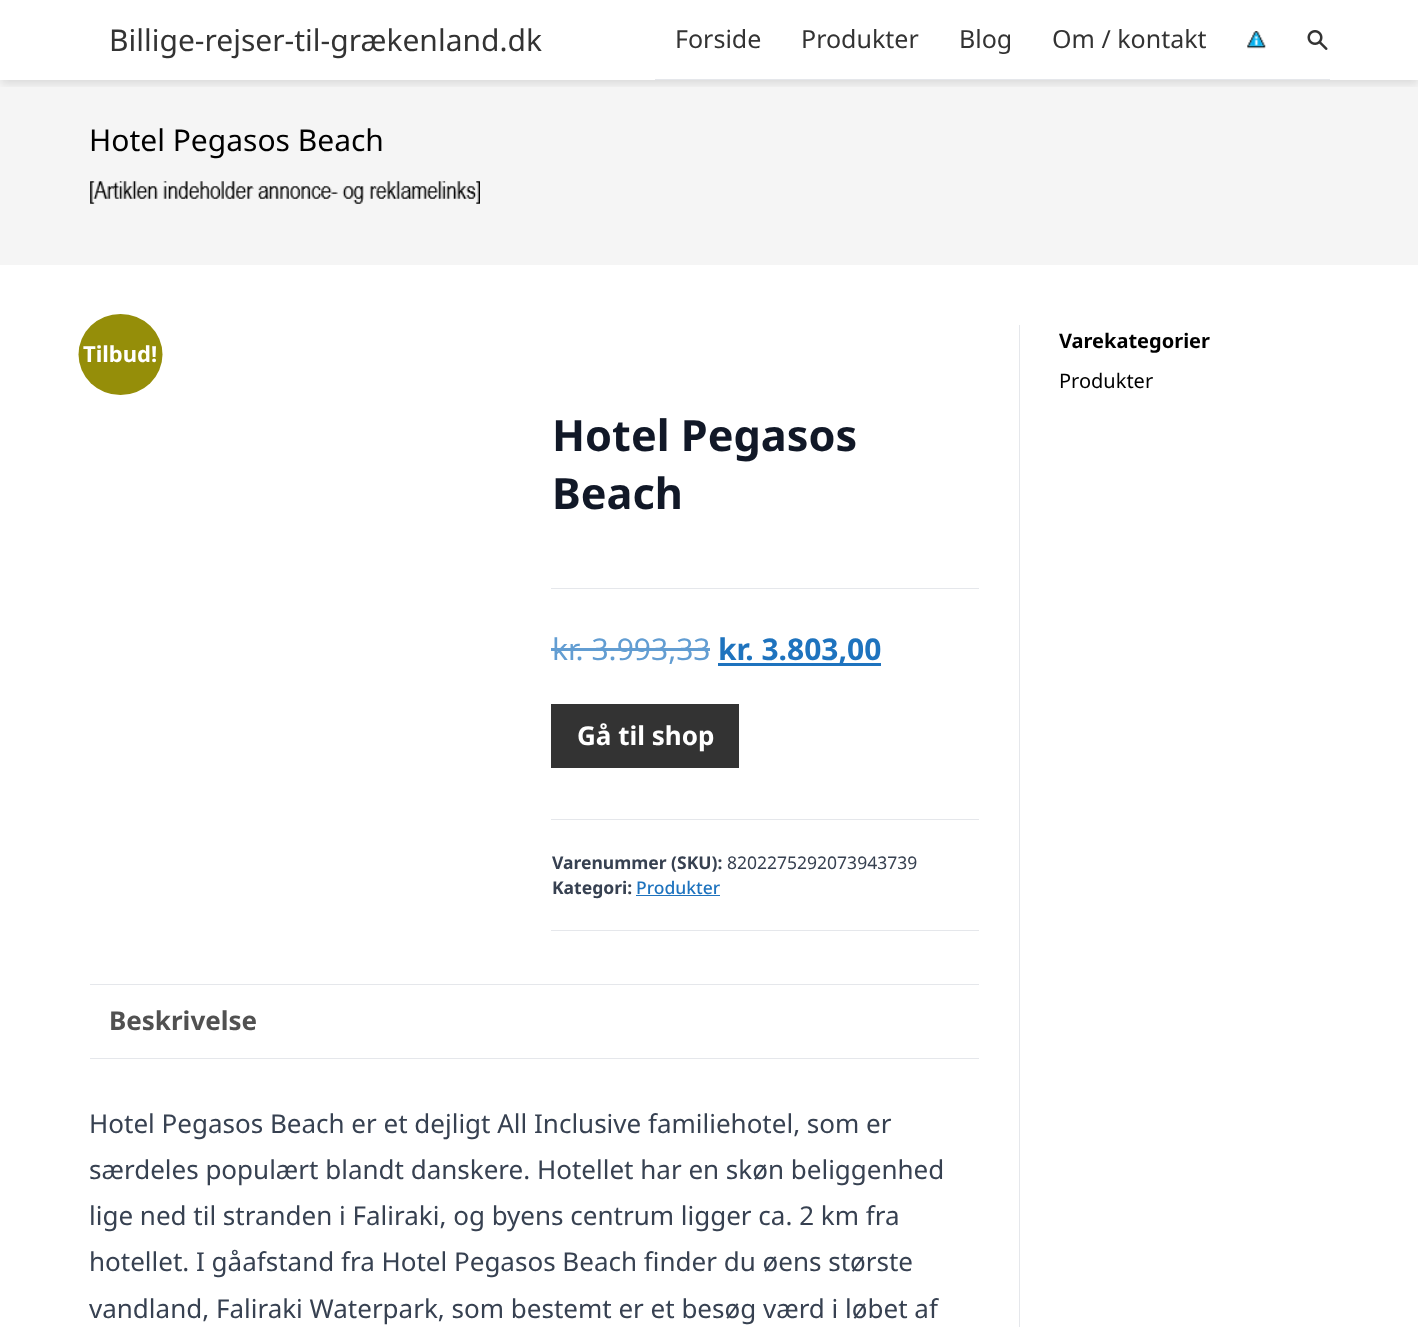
<!DOCTYPE html>
<meta charset="utf-8">
<style>body { margin: 0 } canvas { display: block }</style>
<canvas id="canvas" width="1418" height="1327"></canvas>
<script type="module">
  const canvas = document.getElementById("canvas");
  const ctx = canvas.getContext("2d");
  ctx.miterLimit = 4;
  ctx.fontKerning = "normal";
  async function loadImage(src) {
    const img = new Image();
    img.src = src;
    await img.decode();
    return img;
  }

  ctx.fillStyle = "#ffffff";
  ctx.fillRect(0, 0, 1418, 1327);
  ctx.fillStyle = "#f5f5f5";
  ctx.fillRect(0, 80, 1418, 185);
  ctx.save();
  ctx.beginPath();
  ctx.rect(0, 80, 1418, 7);
  ctx.clip();
  ctx.fillStyle = "rgba(0, 0, 0, 0.1)";
  ctx.filter = "blur(4px)";
  ctx.beginPath();
  ctx.rect(1, 6, 1417, 78);
  ctx.fill();
  ctx.filter = "none";
  ctx.restore();
  ctx.font = "30px Noto Sans";
  ctx.fillStyle = "#333333";
  ctx.fillText("Billige-rejser-til-grækenland.dk", 109, 51);
  ctx.fillStyle = "#e5e7eb";
  ctx.fillRect(655, 79, 675, 1);
  ctx.font = "25px Noto Sans";
  ctx.fillStyle = "#333333";
  ctx.fillText("Forside", 675, 48);
  ctx.fillText("Produkter", 801, 48);
  ctx.fillText("Blog", 959, 48);
  ctx.fillText("Om / kontakt", 1052, 48);
  ctx.drawImage(await loadImage("img1.png"), 1247, 31, 19, 18);
  ctx.drawImage(await loadImage("img2.png"), 1307, 30, 21, 20);
  ctx.font = "30px Noto Sans";
  ctx.fillStyle = "#000000";
  ctx.fillText("Hotel Pegasos Beach", 89, 151);
  ctx.drawImage(await loadImage("img3.png"), 90, 181, 390, 23);
  ctx.fillStyle = "#e5e7eb";
  ctx.fillRect(1019, 325, 1, 1002);
  ctx.fillStyle = "#958e09";
  ctx.beginPath();
  ctx.ellipse(120.5, 354.5, 42, 40.5, 0, 0, Math.PI * 2);
  ctx.fill();
  ctx.font = "bold 22px Noto Sans";
  ctx.fillStyle = "#ffffff";
  ctx.fillText("Tilbud!", 83, 362);
  ctx.fillStyle = "#e5e7eb";
  ctx.fillRect(551, 588, 428, 1);
  ctx.font = "bold 43.25px Noto Sans";
  ctx.fillStyle = "#111827";
  ctx.fillText("Hotel Pegasos", 552, 451);
  ctx.fillText("Beach", 552, 509);
  ctx.font = "30px Noto Sans";
  ctx.fillStyle = "#629dd2";
  ctx.fillText("kr. 3.993,33", 552, 660);
  ctx.fillRect(551, 648, 159, 3);
  ctx.fillStyle = "#1e73be";
  ctx.fillRect(718, 663, 163, 3);
  ctx.font = "bold 30px Noto Sans";
  ctx.fillText("kr. 3.803,00", 718, 660);
  ctx.fillStyle = "#333333";
  ctx.fillRect(551, 704, 188, 64);
  ctx.font = "bold 26px Noto Sans";
  ctx.fillStyle = "#ffffff";
  ctx.fillText("Gå til shop", 577, 745);
  ctx.fillStyle = "#e5e7eb";
  ctx.fillRect(551, 819, 428, 1);
  ctx.fillRect(551, 930, 428, 1);
  ctx.font = "bold 17.5px Noto Sans";
  ctx.fillStyle = "#374151";
  ctx.fillText("Varenummer (SKU):", 552, 869);
  ctx.font = "17.5px Noto Sans";
  ctx.fillText("8202275292073943739", 727, 869);
  ctx.font = "bold 17.5px Noto Sans";
  ctx.fillText("Kategori:", 552, 894);
  ctx.font = "500 17.5px Noto Sans";
  ctx.fillStyle = "#1e73be";
  ctx.fillText("Produkter", 636, 894);
  ctx.fillRect(636, 895, 84, 1);
  ctx.fillStyle = "#e5e7eb";
  ctx.fillRect(90, 984, 889, 1);
  ctx.fillRect(90, 1058, 889, 1);
  ctx.font = "bold 26px Noto Sans";
  ctx.fillStyle = "#515151";
  ctx.fillText("Beskrivelse", 109, 1030);
  ctx.font = "26px Noto Sans";
  ctx.fillStyle = "#374151";
  ctx.fillText("Hotel Pegasos Beach er et dejligt All Inclusive familiehotel, som er", 89, 1133);
  ctx.fillText("særdeles populært blandt danskere. Hotellet har en skøn beliggenhed", 89, 1179);
  ctx.fillText("lige ned til stranden i Faliraki, og byens centrum ligger ca. 2 km fra", 89, 1225);
  ctx.fillText("hotellet. I gåafstand fra Hotel Pegasos Beach finder du øens største", 89, 1271);
  ctx.fillText("vandland, Faliraki Waterpark, som bestemt er et besøg værd i løbet af", 89, 1318);
  ctx.font = "bold 20px Noto Sans";
  ctx.fillStyle = "#000000";
  ctx.fillText("Varekategorier", 1059, 348);
  ctx.font = "20px Noto Sans";
  ctx.fillText("Produkter", 1059, 388);
</script>
